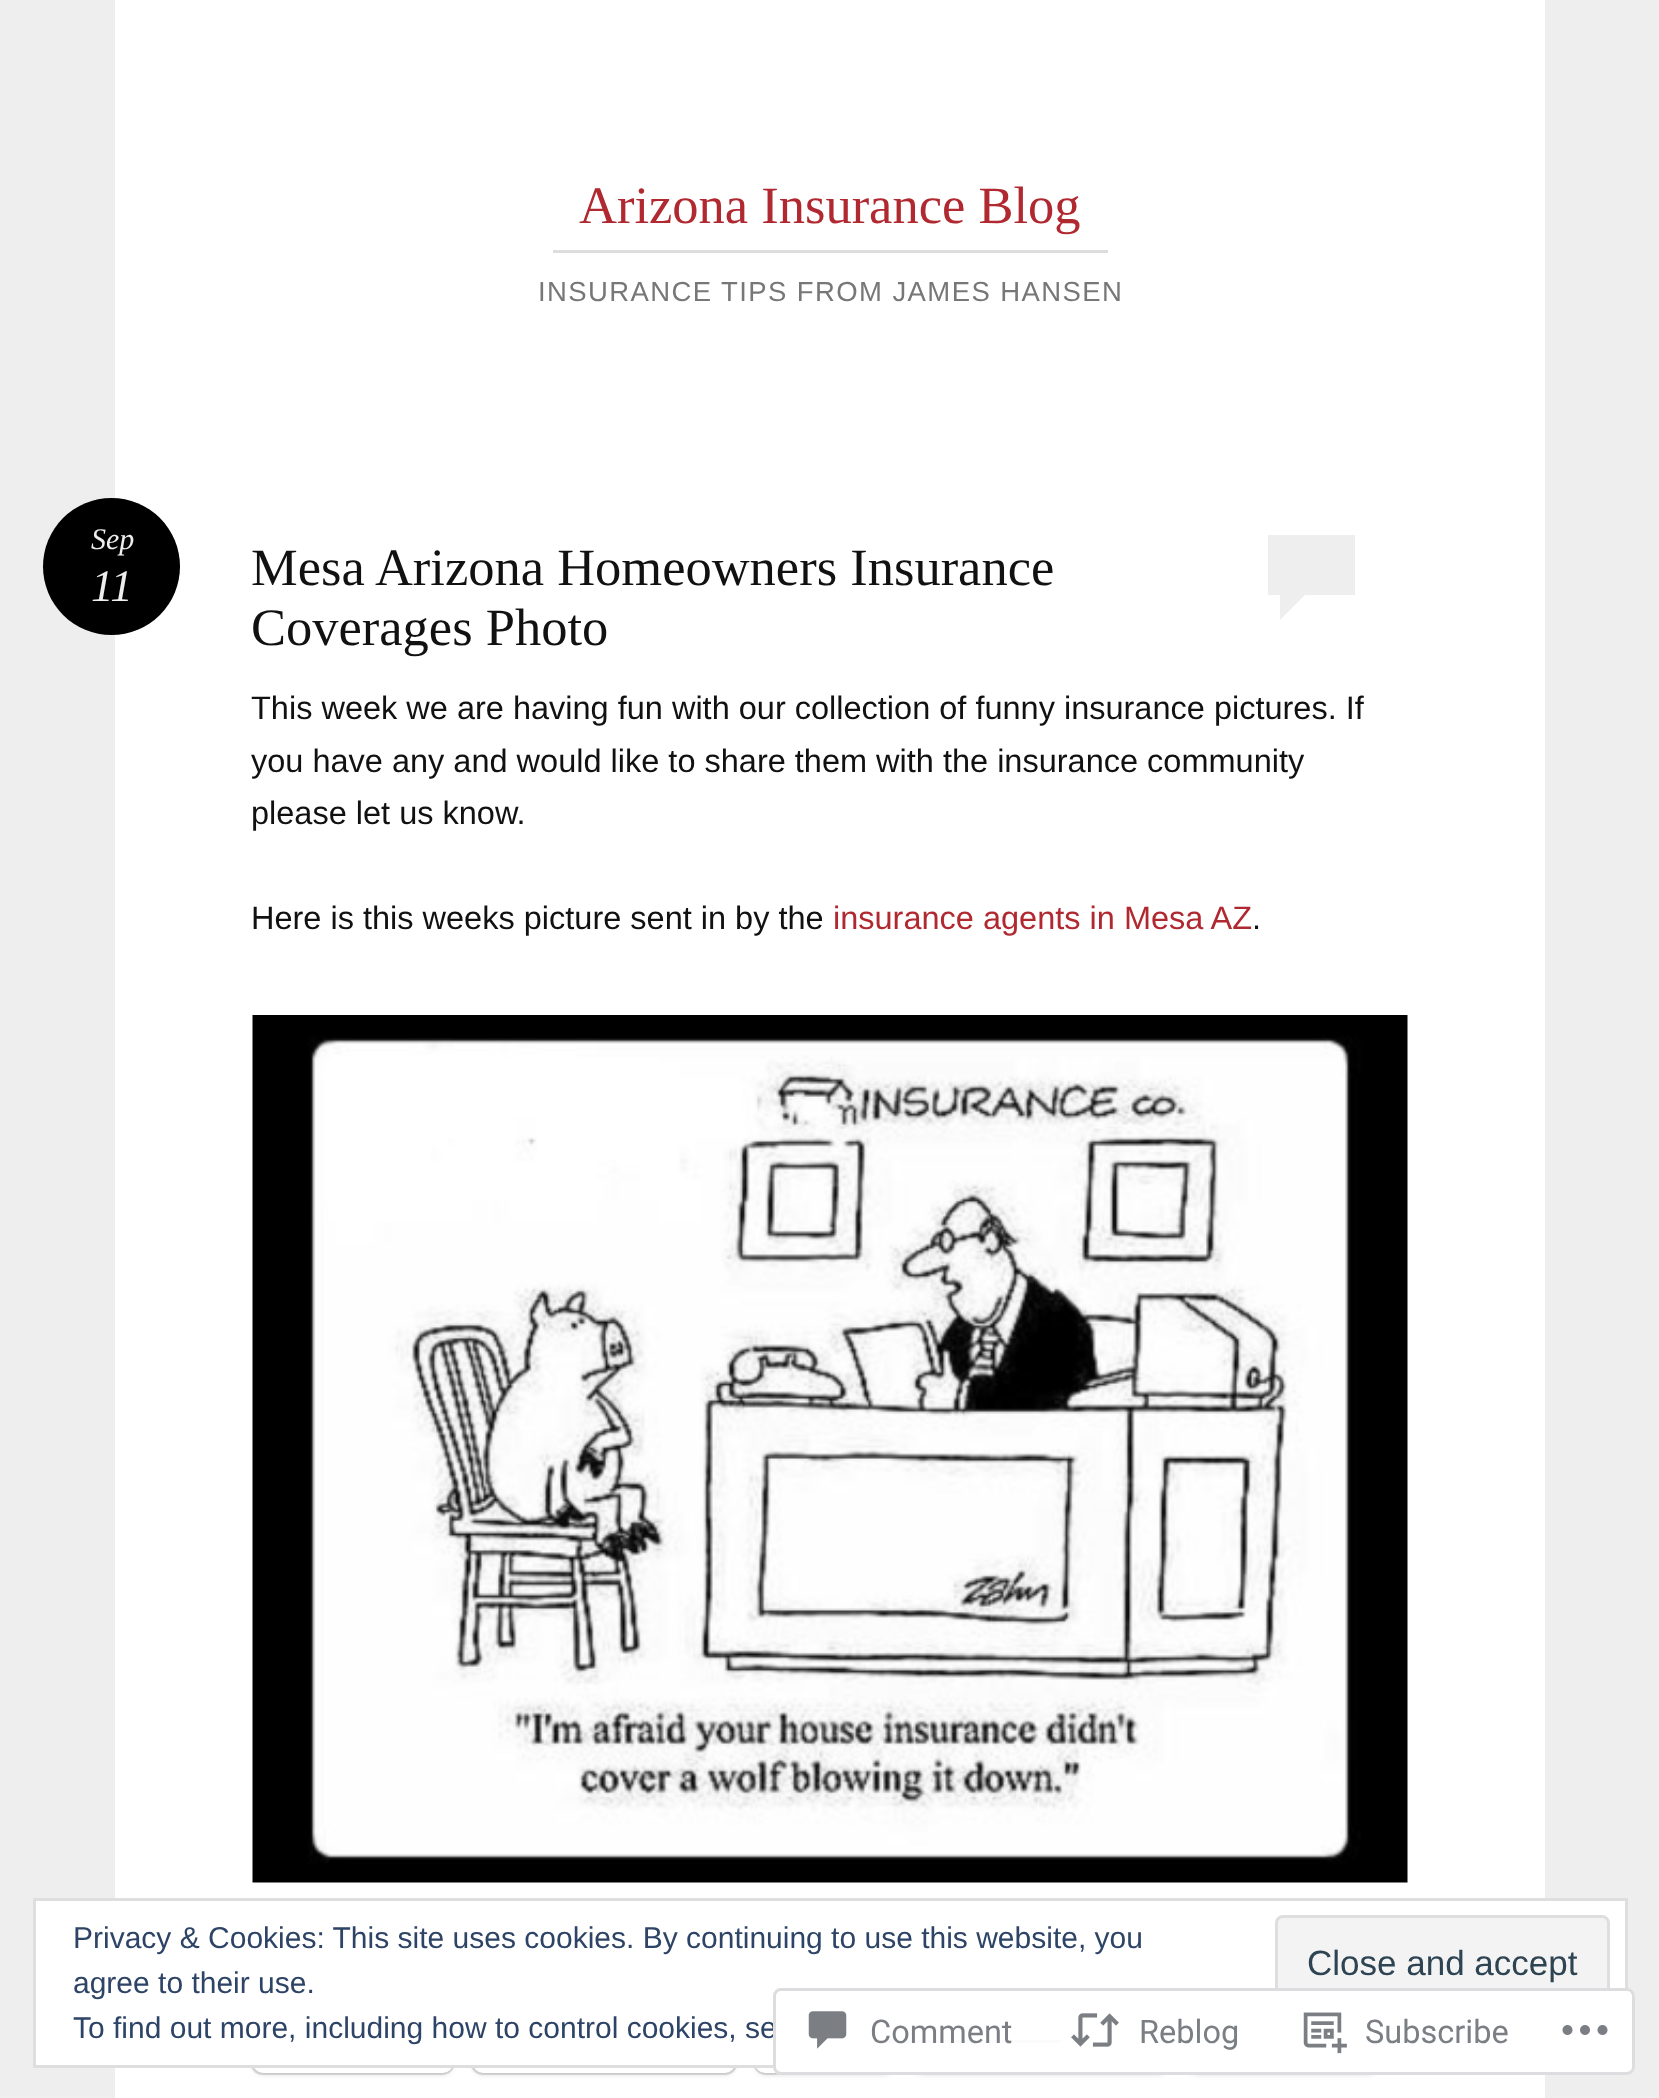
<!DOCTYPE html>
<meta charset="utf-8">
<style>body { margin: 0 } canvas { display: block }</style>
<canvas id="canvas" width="1659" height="2098"></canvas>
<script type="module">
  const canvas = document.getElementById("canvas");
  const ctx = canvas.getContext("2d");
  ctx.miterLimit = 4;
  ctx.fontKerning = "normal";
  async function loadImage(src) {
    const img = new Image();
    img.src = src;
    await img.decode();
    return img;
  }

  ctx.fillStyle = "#eeeeee";
  ctx.fillRect(0, 0, 1659, 2098);
  ctx.fillStyle = "#ffffff";
  ctx.fillRect(115, 0, 1430, 2098);
  ctx.fillStyle = "#dddddd";
  ctx.fillRect(553, 250, 555, 3);
  ctx.font = "52.5px Liberation Serif";
  ctx.fillStyle = "#b12930";
  ctx.fillText("Arizona Insurance Blog", 579, 223);
  ctx.letterSpacing = "1.4px";
  ctx.font = "27.5px Liberation Sans";
  ctx.fillStyle = "#777777";
  ctx.fillText("INSURANCE TIPS FROM JAMES HANSEN", 538, 301);
  ctx.fillStyle = "#000000";
  ctx.beginPath();
  ctx.arc(111.5, 566.5, 68.5, 0, Math.PI * 2);
  ctx.fill();
  ctx.letterSpacing = "0px";
  ctx.font = "italic 30px Liberation Serif";
  ctx.fillStyle = "#eeeeee";
  ctx.fillText("Sep", 91, 549);
  ctx.font = "italic 45px Liberation Serif";
  ctx.fillText("11", 91, 601);
  ctx.font = "52.5px Liberation Serif";
  ctx.fillStyle = "#111111";
  ctx.fillText("Mesa Arizona Homeowners Insurance", 251, 585);
  ctx.fillText("Coverages Photo", 251, 645);
  ctx.fillStyle = "#eeeeee";
  ctx.fillRect(1268, 535, 87, 60);
  ctx.beginPath();
  ctx.moveTo(1280, 620);
  ctx.lineTo(1280, 595);
  ctx.lineTo(1305, 595);
  ctx.closePath();
  ctx.fill();
  ctx.font = "32.5px Liberation Sans";
  ctx.fillStyle = "#111111";
  ctx.fillText("This week we are having fun with our collection of funny insurance pictures. If", 251, 719);
  ctx.fillText("you have any and would like to share them with the insurance community", 251, 772);
  ctx.fillText("please let us know.", 251, 824);
  ctx.fillText("Here is this weeks picture sent in by the", 251, 929);
  ctx.fillStyle = "#b12930";
  ctx.fillText("insurance agents in Mesa AZ", 833, 929);
  ctx.fillStyle = "#111111";
  ctx.fillText(".", 1252, 929);
  ctx.drawImage(await loadImage("img1.png"), 252, 1015, 1156, 868);
  ctx.beginPath();
  ctx.roundRect(251.5, 1996.5, 202, 77, 11.5);
  ctx.strokeStyle = "#e0e0e0";
  ctx.lineWidth = 3;
  ctx.stroke();
  ctx.fillStyle = "rgba(0, 0, 0, 0.12)";
  ctx.filter = "blur(2.5px)";
  ctx.beginPath();
  ctx.roundRect(253, 2000, 200, 75, 10);
  ctx.fill();
  ctx.filter = "none";
  ctx.fillStyle = "#ffffff";
  ctx.beginPath();
  ctx.roundRect(253, 1998, 200, 75, 10);
  ctx.fill();
  ctx.beginPath();
  ctx.roundRect(471.5, 1996.5, 265, 77, 11.5);
  ctx.stroke();
  ctx.fillStyle = "rgba(0, 0, 0, 0.12)";
  ctx.filter = "blur(2.5px)";
  ctx.beginPath();
  ctx.roundRect(473, 2000, 262, 75, 10);
  ctx.fill();
  ctx.filter = "none";
  ctx.fillStyle = "#ffffff";
  ctx.beginPath();
  ctx.roundRect(473, 1998, 262, 75, 10);
  ctx.fill();
  ctx.beginPath();
  ctx.roundRect(754.5, 1996.5, 139, 77, 11.5);
  ctx.stroke();
  ctx.fillStyle = "rgba(0, 0, 0, 0.12)";
  ctx.filter = "blur(2.5px)";
  ctx.beginPath();
  ctx.roundRect(755, 2000, 138, 75, 10);
  ctx.fill();
  ctx.filter = "none";
  ctx.fillStyle = "#ffffff";
  ctx.beginPath();
  ctx.roundRect(755, 1998, 138, 75, 10);
  ctx.fill();
  ctx.beginPath();
  ctx.roundRect(911.5, 1996.5, 257, 77, 11.5);
  ctx.stroke();
  ctx.fillStyle = "rgba(0, 0, 0, 0.12)";
  ctx.filter = "blur(2.5px)";
  ctx.beginPath();
  ctx.roundRect(913, 2000, 255, 75, 10);
  ctx.fill();
  ctx.filter = "none";
  ctx.fillStyle = "#ffffff";
  ctx.beginPath();
  ctx.roundRect(913, 1998, 255, 75, 10);
  ctx.fill();
  ctx.beginPath();
  ctx.roundRect(1186.5, 1996.5, 192, 77, 11.5);
  ctx.stroke();
  ctx.fillStyle = "rgba(0, 0, 0, 0.12)";
  ctx.filter = "blur(2.5px)";
  ctx.beginPath();
  ctx.roundRect(1188, 2000, 190, 75, 10);
  ctx.fill();
  ctx.filter = "none";
  ctx.fillStyle = "#ffffff";
  ctx.beginPath();
  ctx.roundRect(1188, 1998, 190, 75, 10);
  ctx.fill();
  ctx.beginPath();
  ctx.rect(34.5, 1899.5, 1592, 167);
  ctx.fill();
  ctx.strokeStyle = "#dedede";
  ctx.stroke();
  ctx.font = "30px Liberation Sans";
  ctx.fillStyle = "#2e4467";
  ctx.fillText("Privacy & Cookies: This site uses cookies. By continuing to use this website, you", 73, 1948);
  ctx.fillText("agree to their use.", 73, 1993);
  ctx.fillStyle = "#f3f3f3";
  ctx.beginPath();
  ctx.roundRect(1276.5, 1916.5, 332, 95, 6.5);
  ctx.fill();
  ctx.stroke();
  ctx.font = "35px Liberation Sans";
  ctx.fillStyle = "#2e4453";
  ctx.fillText("Close and accept", 1307, 1975);
  ctx.font = "30px Liberation Sans";
  ctx.fillStyle = "#2e4467";
  ctx.fillText("To find out more, including how to control cookies, se", 73, 2038);
  ctx.fillRect(878, 2040, 182, 3);
  ctx.fillStyle = "rgba(255, 255, 255, 0.98)";
  ctx.beginPath();
  ctx.roundRect(773, 1988, 862, 87, 8);
  ctx.fill();
  ctx.beginPath();
  ctx.roundRect(774.5, 1989.5, 859, 84, 6.5);
  ctx.strokeStyle = "rgba(220, 220, 222, 0.98)";
  ctx.stroke();
  ctx.drawImage(await loadImage("img2.png"), 808, 2011, 39, 38);
  ctx.font = "32.5px Roboto";
  ctx.fillStyle = "#7b7f84";
  ctx.fillText("Comment", 870, 2043);
  ctx.drawImage(await loadImage("img3.png"), 1071, 2013, 48, 34);
  ctx.fillText("Reblog", 1139, 2043);
  ctx.drawImage(await loadImage("img4.png"), 1303, 2012, 44, 42);
  ctx.fillText("Subscribe", 1365, 2043);
  ctx.drawImage(await loadImage("img5.png"), 1562, 2025, 46, 10);
</script>
